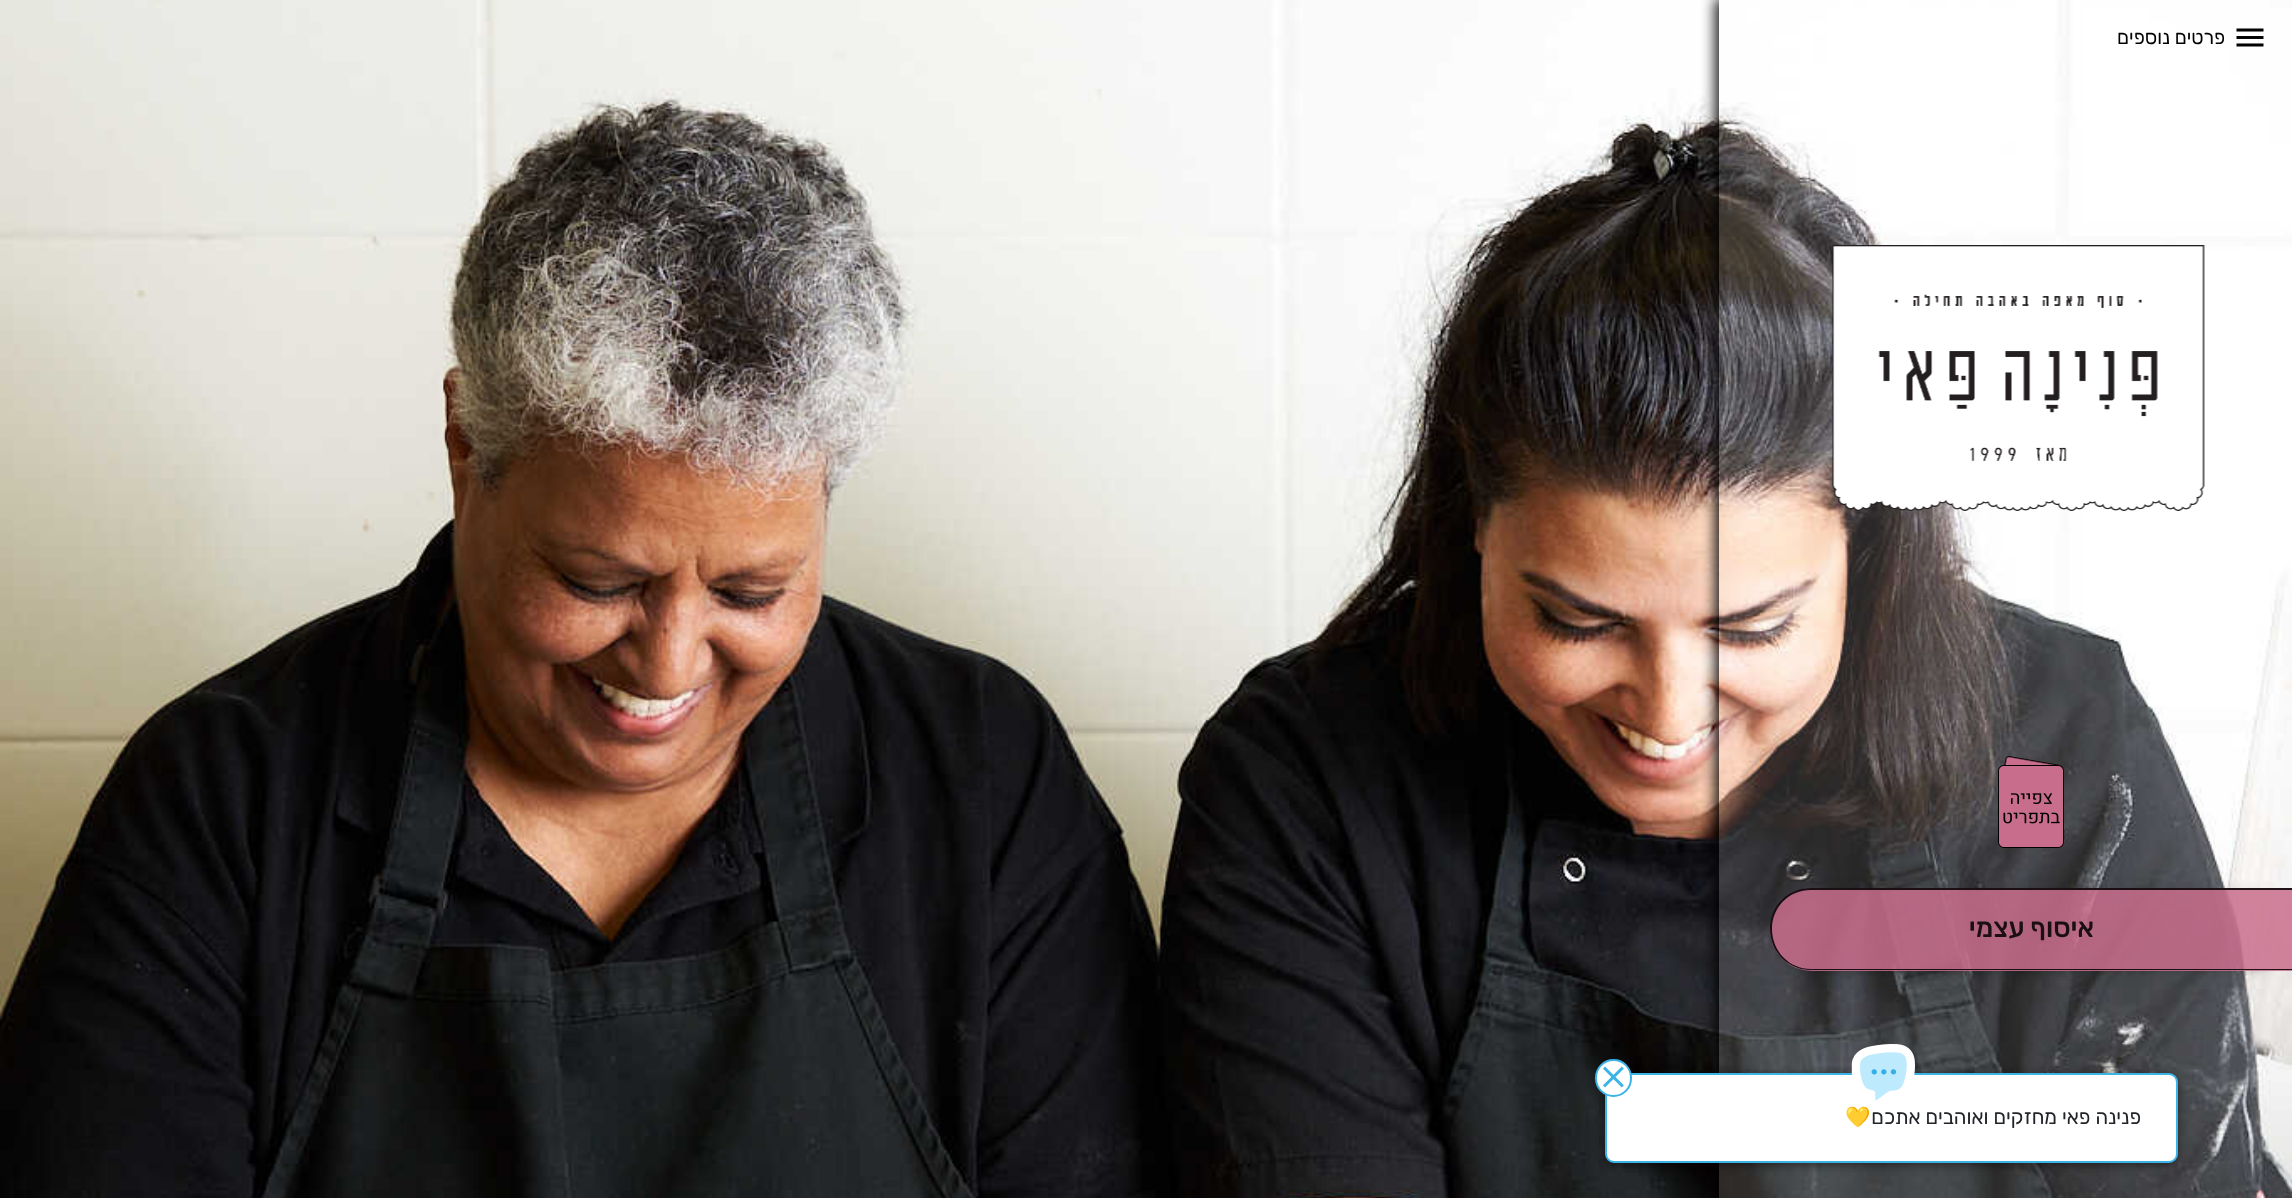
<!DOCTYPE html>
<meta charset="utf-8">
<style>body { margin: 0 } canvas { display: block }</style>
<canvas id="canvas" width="2292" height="1198"></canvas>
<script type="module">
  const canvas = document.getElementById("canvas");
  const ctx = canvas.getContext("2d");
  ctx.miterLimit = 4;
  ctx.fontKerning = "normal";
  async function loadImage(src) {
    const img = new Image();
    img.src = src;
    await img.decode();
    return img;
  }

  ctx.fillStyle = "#ffffff";
  ctx.fillRect(0, 0, 2292, 1198);
  ctx.drawImage(await loadImage("img1.png"), 0, 0, 2292, 1198);
  ctx.save();
  ctx.beginPath();
  ctx.rect(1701, 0, 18, 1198);
  ctx.clip();
  ctx.fillStyle = "rgba(0, 0, 0, 0.9)";
  ctx.filter = "blur(7px)";
  ctx.beginPath();
  ctx.rect(1715, -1, 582, 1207);
  ctx.fill();
  ctx.filter = "none";
  ctx.restore();
  ctx.fillStyle = "rgba(255, 255, 255, 0.15)";
  ctx.fillRect(1719, 108, 573, 1090);
  ctx.drawImage(await loadImage("img2.png"), 2236, 28, 28, 19);
  ctx.direction = "rtl";
  ctx.font = "19.5px Rubik";
  ctx.fillStyle = "#000000";
  ctx.fillText("פרטים נוספים", 2225, 44);
  ctx.drawImage(await loadImage("img3.png"), 1832, 245, 373, 266);
  ctx.drawImage(await loadImage("img4.png"), 1998, 756, 66, 92);
  ctx.save();
  ctx.beginPath();
  ctx.moveTo(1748, 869);
  ctx.lineTo(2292, 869);
  ctx.lineTo(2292, 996);
  ctx.lineTo(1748, 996);
  ctx.closePath();
  ctx.moveTo(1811.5, 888);
  ctx.lineTo(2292, 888);
  ctx.lineTo(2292, 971);
  ctx.lineTo(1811.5, 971);
  ctx.bezierCurveTo(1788.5, 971, 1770, 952.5, 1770, 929.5);
  ctx.bezierCurveTo(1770, 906.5, 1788.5, 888, 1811.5, 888);
  ctx.closePath();
  ctx.clip("evenodd");
  ctx.fillStyle = "rgba(0, 0, 0, 0.09)";
  ctx.filter = "blur(7px)";
  ctx.beginPath();
  ctx.roundRect(1770, 891, 522, 83, 41.5);
  ctx.fill();
  ctx.filter = "none";
  ctx.restore();
  ctx.save();
  ctx.beginPath();
  ctx.moveTo(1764, 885);
  ctx.lineTo(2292, 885);
  ctx.lineTo(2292, 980);
  ctx.lineTo(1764, 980);
  ctx.closePath();
  ctx.moveTo(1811.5, 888);
  ctx.lineTo(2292, 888);
  ctx.lineTo(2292, 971);
  ctx.lineTo(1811.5, 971);
  ctx.bezierCurveTo(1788.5, 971, 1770, 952.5, 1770, 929.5);
  ctx.bezierCurveTo(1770, 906.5, 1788.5, 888, 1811.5, 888);
  ctx.closePath();
  ctx.clip("evenodd");
  ctx.fillStyle = "rgba(0, 0, 0, 0.06)";
  ctx.filter = "blur(1.5px)";
  ctx.beginPath();
  ctx.roundRect(1770, 891, 522, 83, 41.5);
  ctx.fill();
  ctx.filter = "none";
  ctx.restore();
  ctx.fillStyle = "rgba(201, 109, 140, 0.85)";
  ctx.beginPath();
  ctx.roundRect(1770, 888, 522, 83, [41.5, 0, 0, 41.5]);
  ctx.fill();
  ctx.fillStyle = "rgba(0, 0, 0, 0.85)";
  ctx.beginPath();
  ctx.moveTo(1811, 888);
  ctx.lineTo(2292, 888);
  ctx.lineTo(2292, 970);
  ctx.lineTo(1811, 970);
  ctx.bezierCurveTo(1788, 970, 1770, 952, 1770, 929);
  ctx.bezierCurveTo(1770, 906, 1788, 888, 1811, 888);
  ctx.closePath();
  ctx.moveTo(1811, 890);
  ctx.lineTo(2292, 890);
  ctx.lineTo(2292, 969);
  ctx.lineTo(1811, 969);
  ctx.bezierCurveTo(1789, 969, 1772, 951, 1772, 929);
  ctx.bezierCurveTo(1772, 907, 1789, 890, 1811, 890);
  ctx.closePath();
  ctx.fill("evenodd");
  ctx.font = "500 27px Rubik";
  ctx.fillStyle = "#1b0f13";
  ctx.fillText("איסוף עצמי", 2094, 937);
  ctx.fillStyle = "rgba(0, 0, 0, 0.18)";
  ctx.filter = "blur(5px)";
  ctx.beginPath();
  ctx.roundRect(1605, 1073, 573, 90, 9);
  ctx.fill();
  ctx.filter = "none";
  ctx.fillStyle = "rgba(0, 0, 0, 0.32)";
  ctx.filter = "blur(4.5px)";
  ctx.beginPath();
  ctx.roundRect(1605, 1076, 573, 90, 9);
  ctx.fill();
  ctx.filter = "none";
  ctx.fillStyle = "#ffffff";
  ctx.beginPath();
  ctx.roundRect(1606, 1074, 571, 88, 8);
  ctx.fill();
  ctx.strokeStyle = "#3cb3e6";
  ctx.lineWidth = 2;
  ctx.stroke();
  ctx.font = "20.4px Noto Color Emoji";
  ctx.fillStyle = "#212529";
  ctx.fillText("💛", 1871, 1124);
  ctx.drawImage(await loadImage("img5.png"), 1851, 1044, 65, 63);
  ctx.fillStyle = "#ffffff";
  ctx.beginPath();
  ctx.roundRect(1596, 1060, 35, 36, 17.5);
  ctx.fill();
  ctx.stroke();
  ctx.drawImage(await loadImage("img6.png"), 1603, 1066, 21, 22);
  ctx.font = "20.4px Rubik";
  ctx.fillStyle = "#212529";
  ctx.fillText("פנינה פאי מחזקים ואוהבים אתכם", 2141, 1124);
</script>
